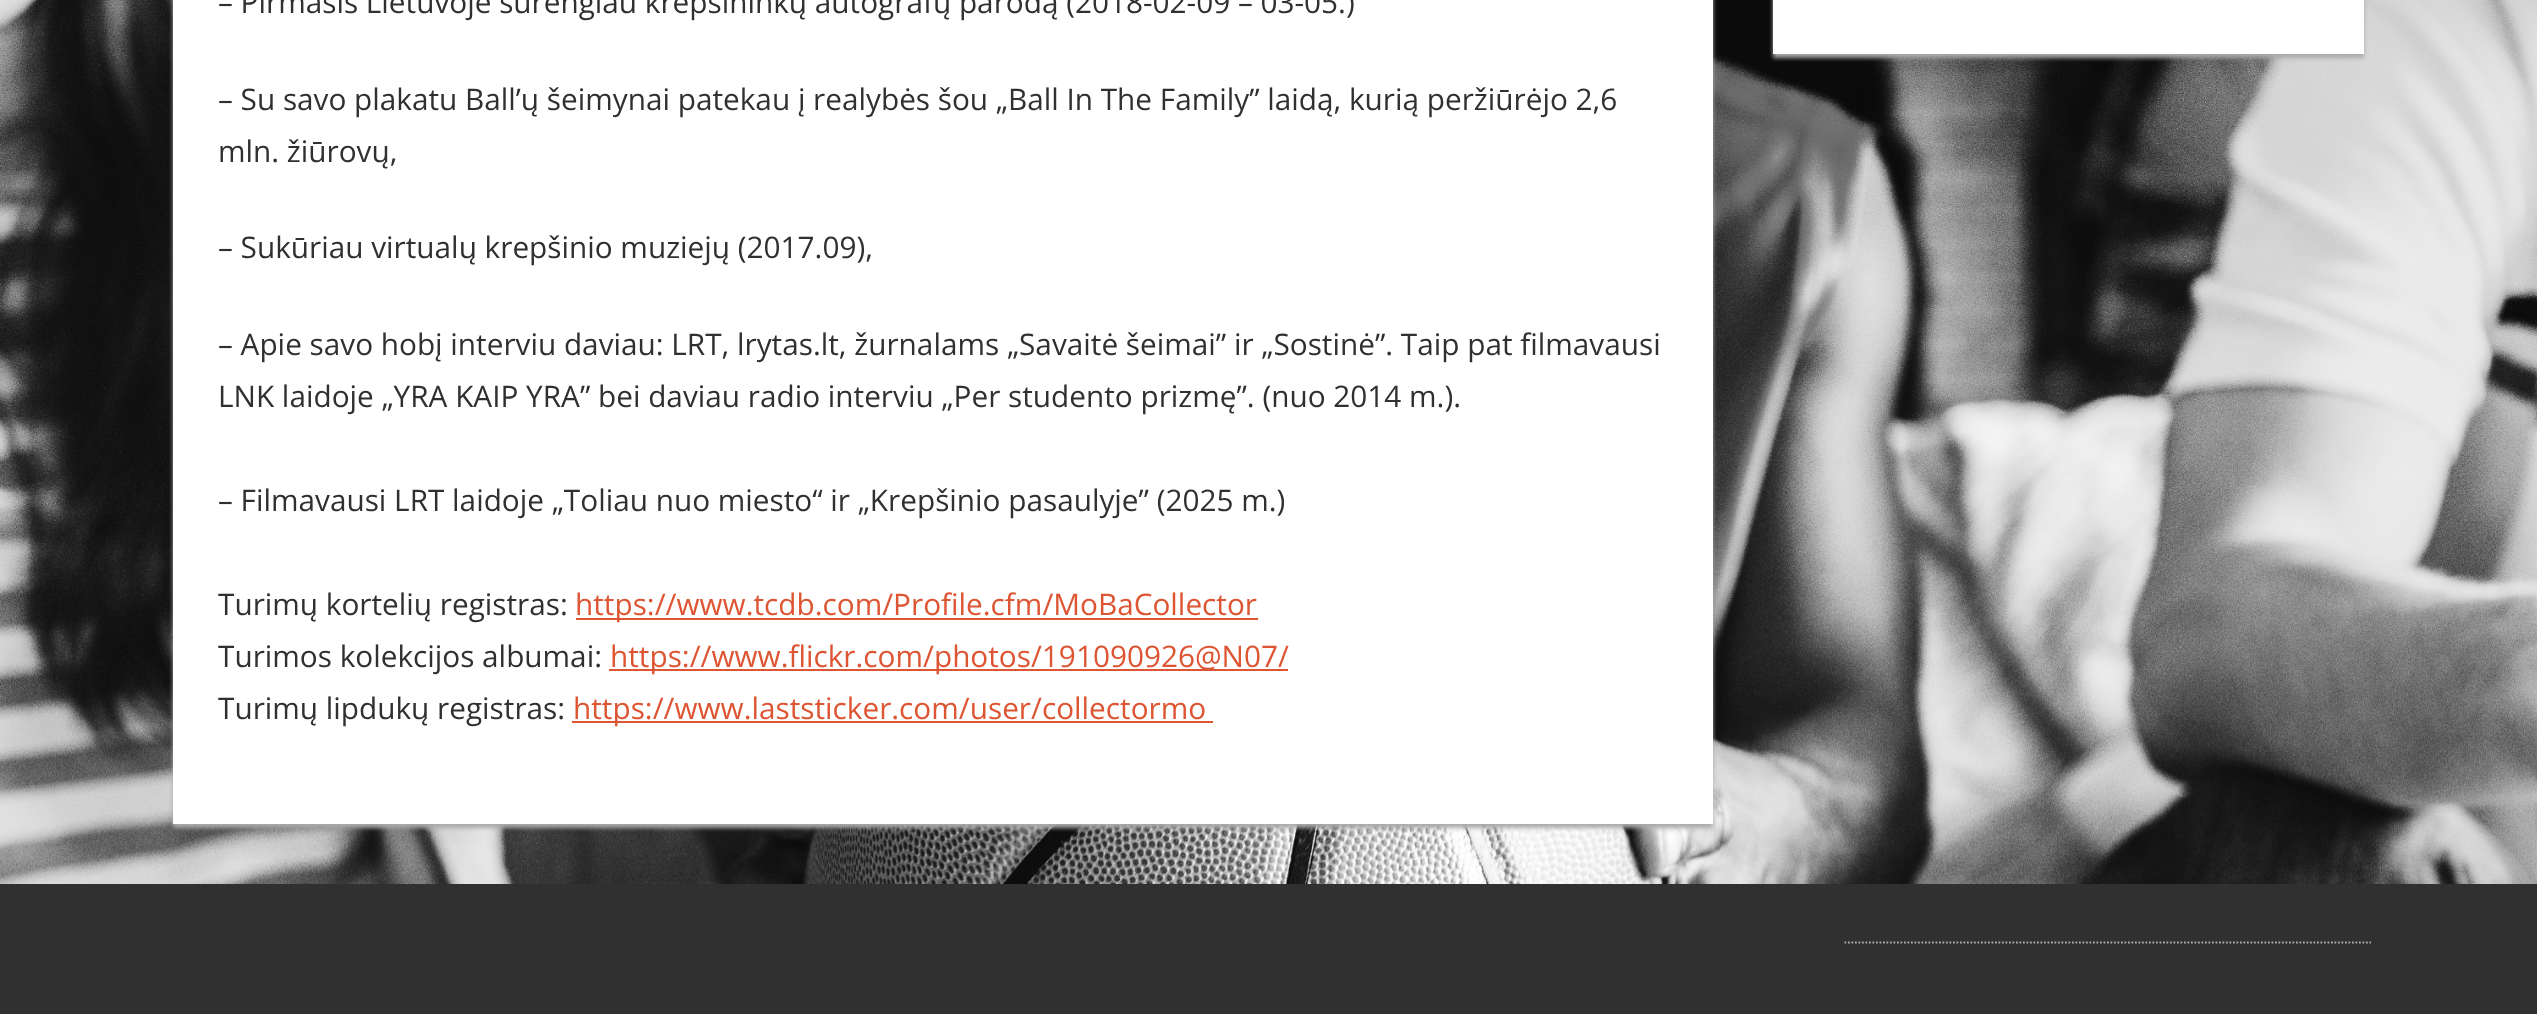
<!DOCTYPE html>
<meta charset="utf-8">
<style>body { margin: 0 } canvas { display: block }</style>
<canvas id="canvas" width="2537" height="1014"></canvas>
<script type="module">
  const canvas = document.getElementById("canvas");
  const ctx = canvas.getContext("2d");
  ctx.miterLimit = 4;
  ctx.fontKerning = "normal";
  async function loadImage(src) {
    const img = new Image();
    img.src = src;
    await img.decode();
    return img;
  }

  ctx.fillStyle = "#ffffff";
  ctx.fillRect(0, 0, 2537, 1014);
  ctx.drawImage(await loadImage("img1.png"), 0, 0, 2537, 884);
  ctx.fillStyle = "#aaaaaa";
  ctx.filter = "blur(2px)";
  ctx.beginPath();
  ctx.rect(173, -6, 1540, 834);
  ctx.fill();
  ctx.filter = "none";
  ctx.fillStyle = "#ffffff";
  ctx.fillRect(173, 0, 1540, 824);
  ctx.font = "29.75px Open Sans";
  ctx.fillStyle = "#303030";
  ctx.fillText("– Pirmasis Lietuvoje surengiau krepšininkų autografų parodą (2018-02-09 – 03-05.)", 218, 13);
  ctx.fillText("– Su savo plakatu Ball’ų šeimynai patekau į realybės šou „Ball In The Family” laidą, kurią peržiūrėjo 2,6", 218, 110);
  ctx.fillText("mln. žiūrovų,", 218, 162);
  ctx.fillText("– Sukūriau virtualų krepšinio muziejų (2017.09),", 218, 258);
  ctx.fillText("– Apie savo hobį interviu daviau: LRT, lrytas.lt, žurnalams „Savaitė šeimai” ir „Sostinė”. Taip pat filmavausi", 218, 355);
  ctx.fillText("LNK laidoje „YRA KAIP YRA” bei daviau radio interviu „Per studento prizmę”. (nuo 2014 m.).", 218, 407);
  ctx.fillText("– Filmavausi LRT laidoje „Toliau nuo miesto“ ir „Krepšinio pasaulyje” (2025 m.)", 218, 511);
  ctx.fillText("Turimų kortelių registras:", 218, 615);
  ctx.fillStyle = "#dd5533";
  ctx.fillRect(576, 618, 682, 2);
  ctx.fillText("https://www.tcdb.com/Profile.cfm/MoBaCollector", 575, 615);
  ctx.fillStyle = "#303030";
  ctx.fillText("Turimos kolekcijos albumai:", 218, 667);
  ctx.fillStyle = "#dd5533";
  ctx.fillRect(609, 669, 679, 2);
  ctx.fillText("https://www.flickr.com/photos/191090926@N07/", 610, 667);
  ctx.fillStyle = "#303030";
  ctx.fillText("Turimų lipdukų registras:", 218, 719);
  ctx.fillStyle = "#dd5533";
  ctx.fillRect(572, 721, 641, 2);
  ctx.fillText("https://www.laststicker.com/user/collectormo", 573, 719);
  ctx.fillStyle = "#aaaaaa";
  ctx.filter = "blur(2px)";
  ctx.beginPath();
  ctx.rect(1773, -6, 591, 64);
  ctx.fill();
  ctx.filter = "none";
  ctx.fillStyle = "#ffffff";
  ctx.fillRect(1773, 0, 591, 54);
  ctx.fillStyle = "#303030";
  ctx.fillRect(0, 884, 2537, 130);
  ctx.beginPath();
  ctx.moveTo(1844.5, 942.5);
  ctx.lineTo(2371, 942.5);
  ctx.strokeStyle = "#acacac";
  ctx.lineWidth = 1.8;
  ctx.setLineDash([1.75, 1.75]);
  ctx.stroke();
</script>
